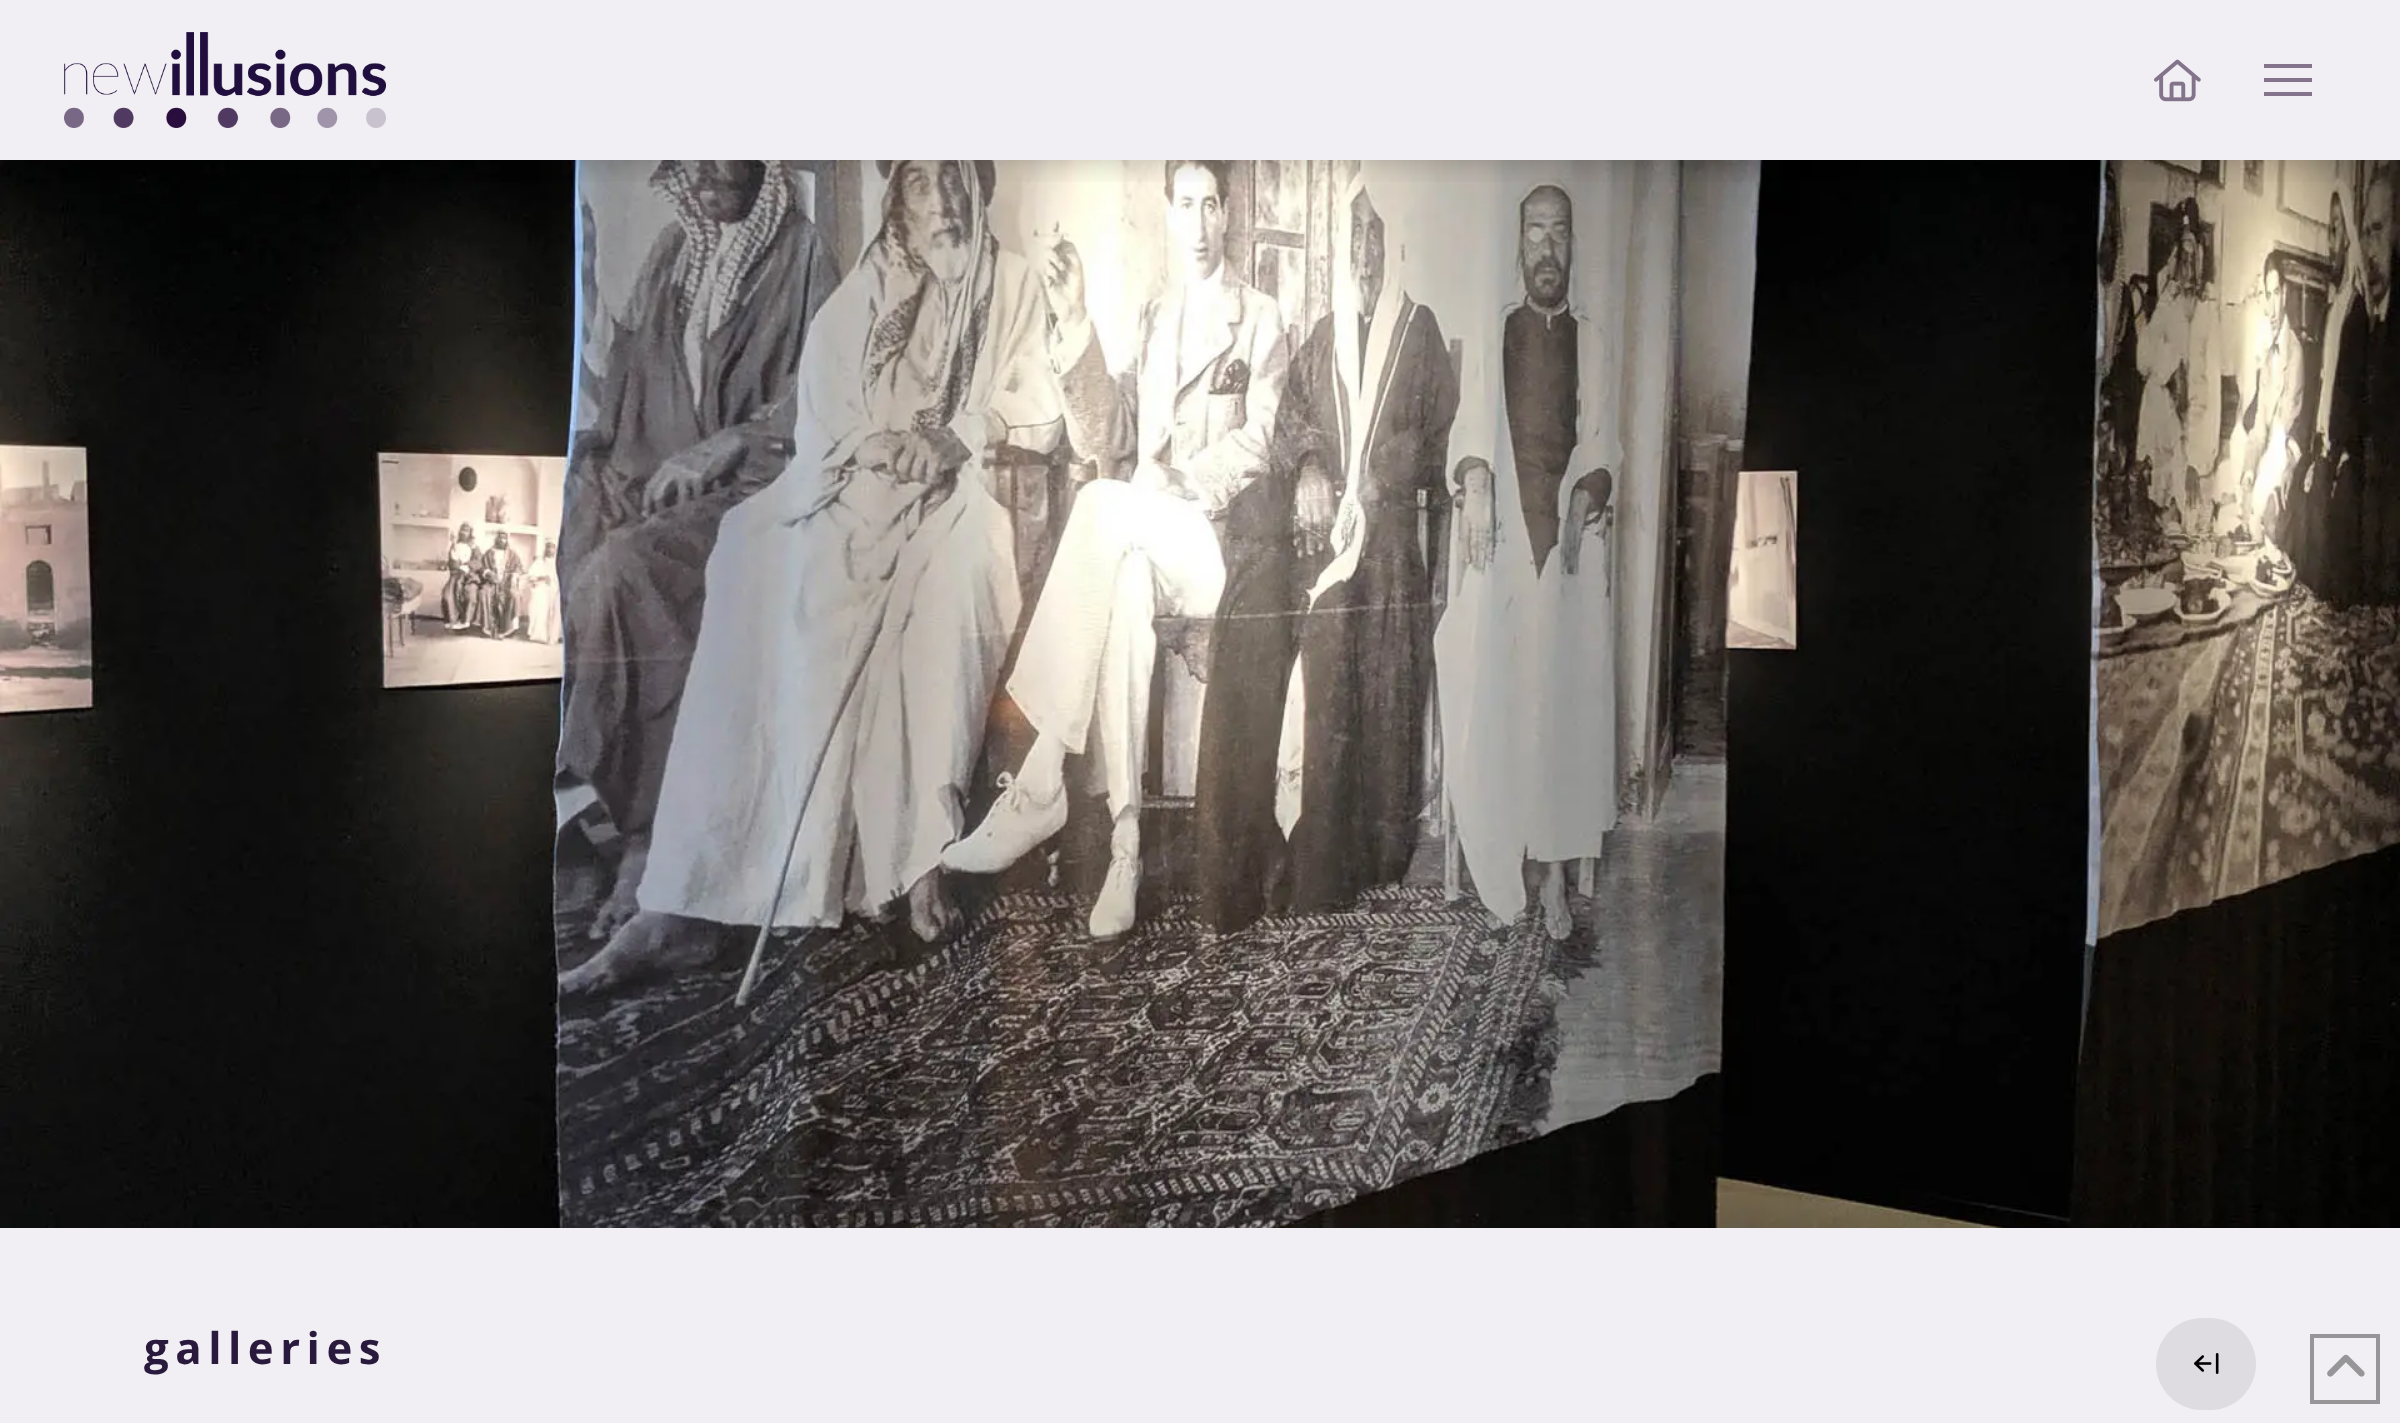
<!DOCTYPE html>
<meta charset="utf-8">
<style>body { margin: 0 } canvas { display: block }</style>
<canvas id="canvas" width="2400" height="1423"></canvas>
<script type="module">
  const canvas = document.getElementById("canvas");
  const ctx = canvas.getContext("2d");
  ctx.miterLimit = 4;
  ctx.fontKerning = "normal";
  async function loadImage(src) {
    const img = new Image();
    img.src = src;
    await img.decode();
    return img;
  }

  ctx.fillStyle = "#f1eff3";
  ctx.fillRect(0, 0, 2400, 1423);
  ctx.drawImage(await loadImage("img3.png"), 0, 160, 2400, 1068);
  ctx.save();
  ctx.beginPath();
  ctx.rect(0, 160, 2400, 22);
  ctx.clip();
  ctx.fillStyle = "rgba(0, 0, 0, 0.25)";
  ctx.filter = "blur(16px)";
  ctx.beginPath();
  ctx.rect(0, 0, 2400, 160);
  ctx.fill();
  ctx.filter = "none";
  ctx.restore();
  ctx.drawImage(await loadImage("img1.png"), 64, 32, 322, 96);
  ctx.drawImage(await loadImage("img2.png"), 2154, 59, 47, 43);
  ctx.fillStyle = "#83748c";
  ctx.fillRect(2264, 64, 48, 4);
  ctx.fillRect(2264, 78, 48, 4);
  ctx.fillRect(2264, 92, 48, 4);
  ctx.letterSpacing = "6.5px";
  ctx.font = "bold 43.75px Open Sans";
  ctx.fillStyle = "#28193d";
  ctx.fillText("galleries", 144, 1364);
  ctx.fillStyle = "#dedce0";
  ctx.beginPath();
  ctx.roundRect(2156, 1318, 100, 92, 46);
  ctx.fill();
  ctx.drawImage(await loadImage("img4.png"), 2194, 1353, 25, 21);
  ctx.strokeStyle = "#979598";
  ctx.lineWidth = 4;
  ctx.strokeRect(2312, 1336, 66, 66);
  ctx.drawImage(await loadImage("img5.png"), 2327, 1354, 38, 23);
</script>
